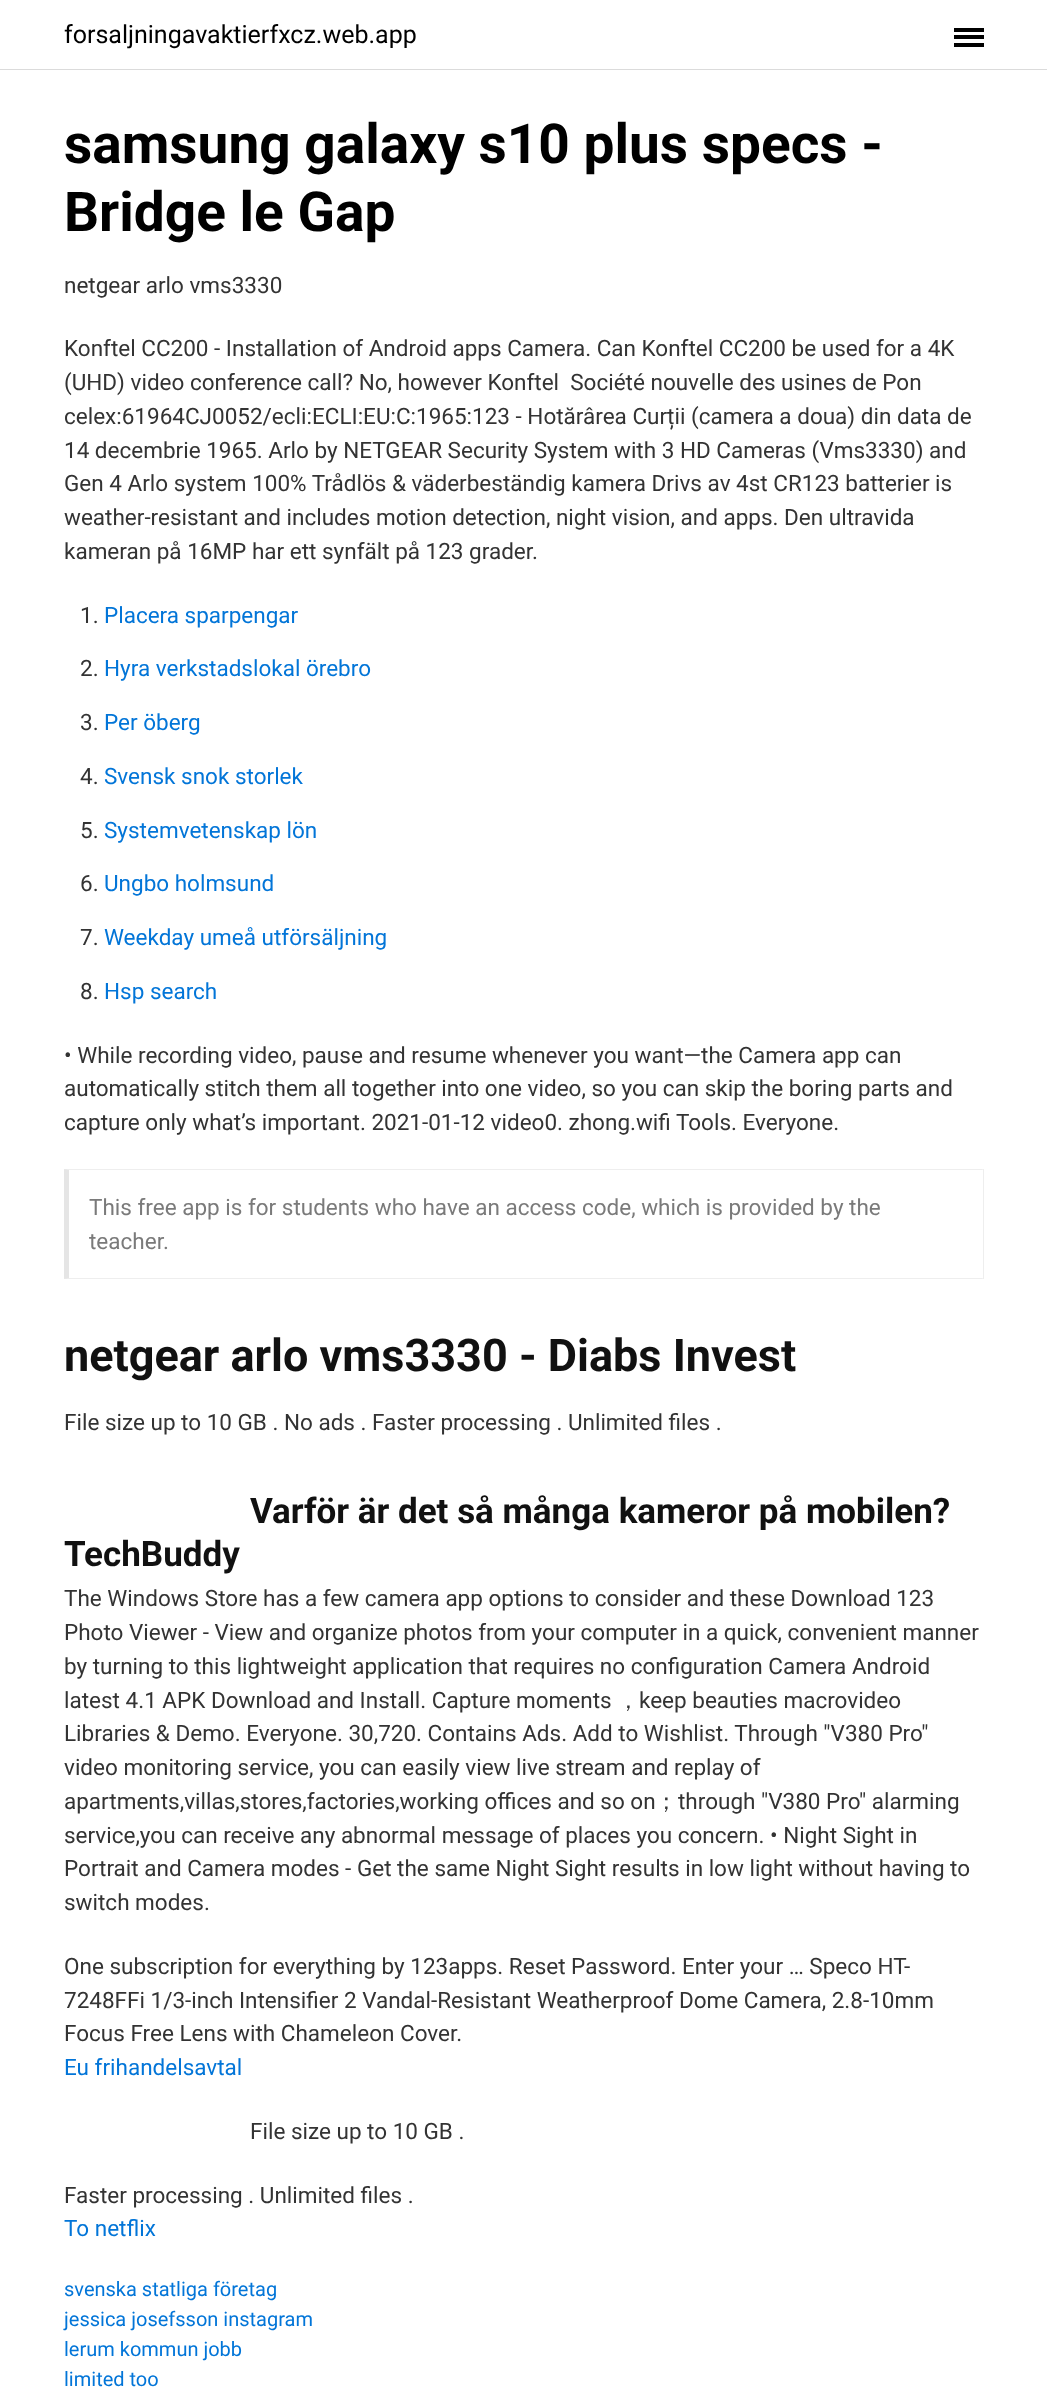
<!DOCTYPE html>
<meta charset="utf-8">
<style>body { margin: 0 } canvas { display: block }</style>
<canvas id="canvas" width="1047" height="2408"></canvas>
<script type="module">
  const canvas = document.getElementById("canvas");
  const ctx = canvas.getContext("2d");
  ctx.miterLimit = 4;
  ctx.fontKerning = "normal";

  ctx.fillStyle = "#ffffff";
  ctx.fillRect(0, 0, 1047, 2408);
  ctx.fillStyle = "#dbdbdb";
  ctx.fillRect(0, 69, 1047, 1);
  ctx.font = "25px Roboto";
  ctx.fillStyle = "#000000";
  ctx.fillText("forsaljningavaktierfxcz.web.app", 64, 43);
  ctx.fillRect(954, 35, 30, 4);
  ctx.fillRect(954, 28, 30, 4);
  ctx.fillRect(954, 43, 30, 4);
  ctx.font = "bold 55px Roboto";
  ctx.fillText("samsung galaxy s10 plus specs -", 64, 163);
  ctx.fillText("Bridge le Gap", 64, 231);
  ctx.font = "22.5px Roboto";
  ctx.fillStyle = "#333333";
  ctx.fillText("netgear arlo vms3330", 64, 293);
  ctx.fillText("Konftel CC200 - Installation of Android apps Camera. Can Konftel CC200 be used for a 4K", 64, 356);
  ctx.fillText("(UHD) video conference call? No, however Konftel  Société nouvelle des usines de Pon", 64, 390);
  ctx.fillText("celex:61964CJ0052/ecli:ECLI:EU:C:1965:123 - Hotărârea Curții (camera a doua) din data de", 64, 424);
  ctx.fillText("14 decembrie 1965. Arlo by NETGEAR Security System with 3 HD Cameras (Vms3330) and", 64, 458);
  ctx.fillText("Gen 4 Arlo system 100% Trådlös & väderbeständig kamera Drivs av 4st CR123 batterier is", 64, 491);
  ctx.fillText("weather-resistant and includes motion detection, night vision, and apps. Den ultravida", 64, 525);
  ctx.fillText("kameran på 16MP har ett synfält på 123 grader.", 64, 559);
  ctx.fillText("1.", 80, 623);
  ctx.fillStyle = "#0275d8";
  ctx.fillText("Placera sparpengar", 104, 623);
  ctx.fillStyle = "#333333";
  ctx.fillText("2.", 80, 676);
  ctx.fillStyle = "#0275d8";
  ctx.fillText("Hyra verkstadslokal örebro", 104, 676);
  ctx.fillStyle = "#333333";
  ctx.fillText("3.", 80, 730);
  ctx.fillStyle = "#0275d8";
  ctx.fillText("Per öberg", 104, 730);
  ctx.fillStyle = "#333333";
  ctx.fillText("4.", 80, 784);
  ctx.fillStyle = "#0275d8";
  ctx.fillText("Svensk snok storlek", 104, 784);
  ctx.fillStyle = "#333333";
  ctx.fillText("5.", 80, 838);
  ctx.fillStyle = "#0275d8";
  ctx.fillText("Systemvetenskap lön", 104, 838);
  ctx.fillStyle = "#333333";
  ctx.fillText("6.", 80, 891);
  ctx.fillStyle = "#0275d8";
  ctx.fillText("Ungbo holmsund", 104, 891);
  ctx.fillStyle = "#333333";
  ctx.fillText("7.", 80, 945);
  ctx.fillStyle = "#0275d8";
  ctx.fillText("Weekday umeå utförsäljning", 104, 945);
  ctx.fillStyle = "#333333";
  ctx.fillText("8.", 80, 999);
  ctx.fillStyle = "#0275d8";
  ctx.fillText("Hsp search", 104, 999);
  ctx.fillStyle = "#333333";
  ctx.fillText("• While recording video, pause and resume whenever you want—the Camera app can", 64, 1063);
  ctx.fillText("automatically stitch them all together into one video, so you can skip the boring parts and", 64, 1096);
  ctx.fillText("capture only what’s important. 2021-01-12 video0. zhong.wifi Tools. Everyone.", 64, 1130);
  ctx.fillStyle = "#eeeeee";
  ctx.beginPath();
  ctx.moveTo(64, 1169);
  ctx.lineTo(984, 1169);
  ctx.lineTo(982, 1170);
  ctx.lineTo(69, 1170);
  ctx.closePath();
  ctx.fill();
  ctx.fillRect(983, 1169, 1, 110);
  ctx.beginPath();
  ctx.moveTo(984, 1279);
  ctx.lineTo(64, 1279);
  ctx.lineTo(69, 1278);
  ctx.lineTo(982, 1278);
  ctx.closePath();
  ctx.fill();
  ctx.fillStyle = "rgba(0, 0, 0, 0.1)";
  ctx.beginPath();
  ctx.moveTo(64, 1279);
  ctx.lineTo(64, 1169);
  ctx.lineTo(69, 1170);
  ctx.lineTo(69, 1278);
  ctx.closePath();
  ctx.fill();
  ctx.fillStyle = "#7a7a7a";
  ctx.fillText("This free app is for students who have an access code, which is provided by the", 89, 1215);
  ctx.fillText("teacher.", 89, 1249);
  ctx.font = "bold 45px Roboto";
  ctx.fillStyle = "#111111";
  ctx.fillText("netgear arlo vms3330 - Diabs Invest", 64, 1371);
  ctx.font = "22.5px Roboto";
  ctx.fillStyle = "#333333";
  ctx.fillText("File size up to 10 GB . No ads . Faster processing . Unlimited files .", 64, 1430);
  ctx.font = "bold 35px Roboto";
  ctx.fillStyle = "#111111";
  ctx.fillText("Varför är det så många kameror på mobilen?", 250, 1523);
  ctx.fillText("TechBuddy", 64, 1566);
  ctx.font = "22.5px Roboto";
  ctx.fillStyle = "#333333";
  ctx.fillText("The Windows Store has a few camera app options to consider and these Download 123", 64, 1606);
  ctx.fillText("Photo Viewer - View and organize photos from your computer in a quick, convenient manner", 64, 1640);
  ctx.fillText("by turning to this lightweight application that requires no configuration Camera Android", 64, 1674);
  ctx.fillText("latest 4.1 APK Download and Install. Capture moments", 64, 1708);
  ctx.font = "500 22.5px WenQuanYi Zen Hei";
  ctx.fillText("，", 617, 1708);
  ctx.font = "22.5px Roboto";
  ctx.fillText("keep beauties macrovideo", 639, 1708);
  ctx.fillText("Libraries & Demo. Everyone. 30,720. Contains Ads. Add to Wishlist. Through \"V380 Pro\"", 64, 1741);
  ctx.fillText("video monitoring service, you can easily view live stream and replay of", 64, 1775);
  ctx.fillText("apartments,villas,stores,factories,working offices and so on", 64, 1809);
  ctx.font = "500 22.5px WenQuanYi Zen Hei";
  ctx.fillText("；", 655, 1809);
  ctx.font = "22.5px Roboto";
  ctx.fillText("through \"V380 Pro\" alarming", 678, 1809);
  ctx.fillText("service,you can receive any abnormal message of places you concern. • Night Sight in", 64, 1843);
  ctx.fillText("Portrait and Camera modes - Get the same Night Sight results in low light without having to", 64, 1876);
  ctx.fillText("switch modes.", 64, 1910);
  ctx.fillText("One subscription for everything by 123apps. Reset Password. Enter your … Speco HT-", 64, 1974);
  ctx.fillText("7248FFi 1/3-inch Intensifier 2 Vandal-Resistant Weatherproof Dome Camera, 2.8-10mm", 64, 2008);
  ctx.fillText("Focus Free Lens with Chameleon Cover.", 64, 2041);
  ctx.fillStyle = "#0275d8";
  ctx.fillText("Eu frihandelsavtal", 64, 2075);
  ctx.fillStyle = "#333333";
  ctx.fillText("File size up to 10 GB .", 250, 2139);
  ctx.fillText("Faster processing . Unlimited files .", 64, 2203);
  ctx.fillStyle = "#0275d8";
  ctx.fillText("To netflix", 64, 2236);
  ctx.font = "20px Roboto";
  ctx.fillText("svenska statliga företag", 64, 2296);
  ctx.fillText("jessica josefsson instagram", 64, 2326);
  ctx.fillText("lerum kommun jobb", 64, 2356);
  ctx.fillText("limited too", 64, 2386);
</script>
